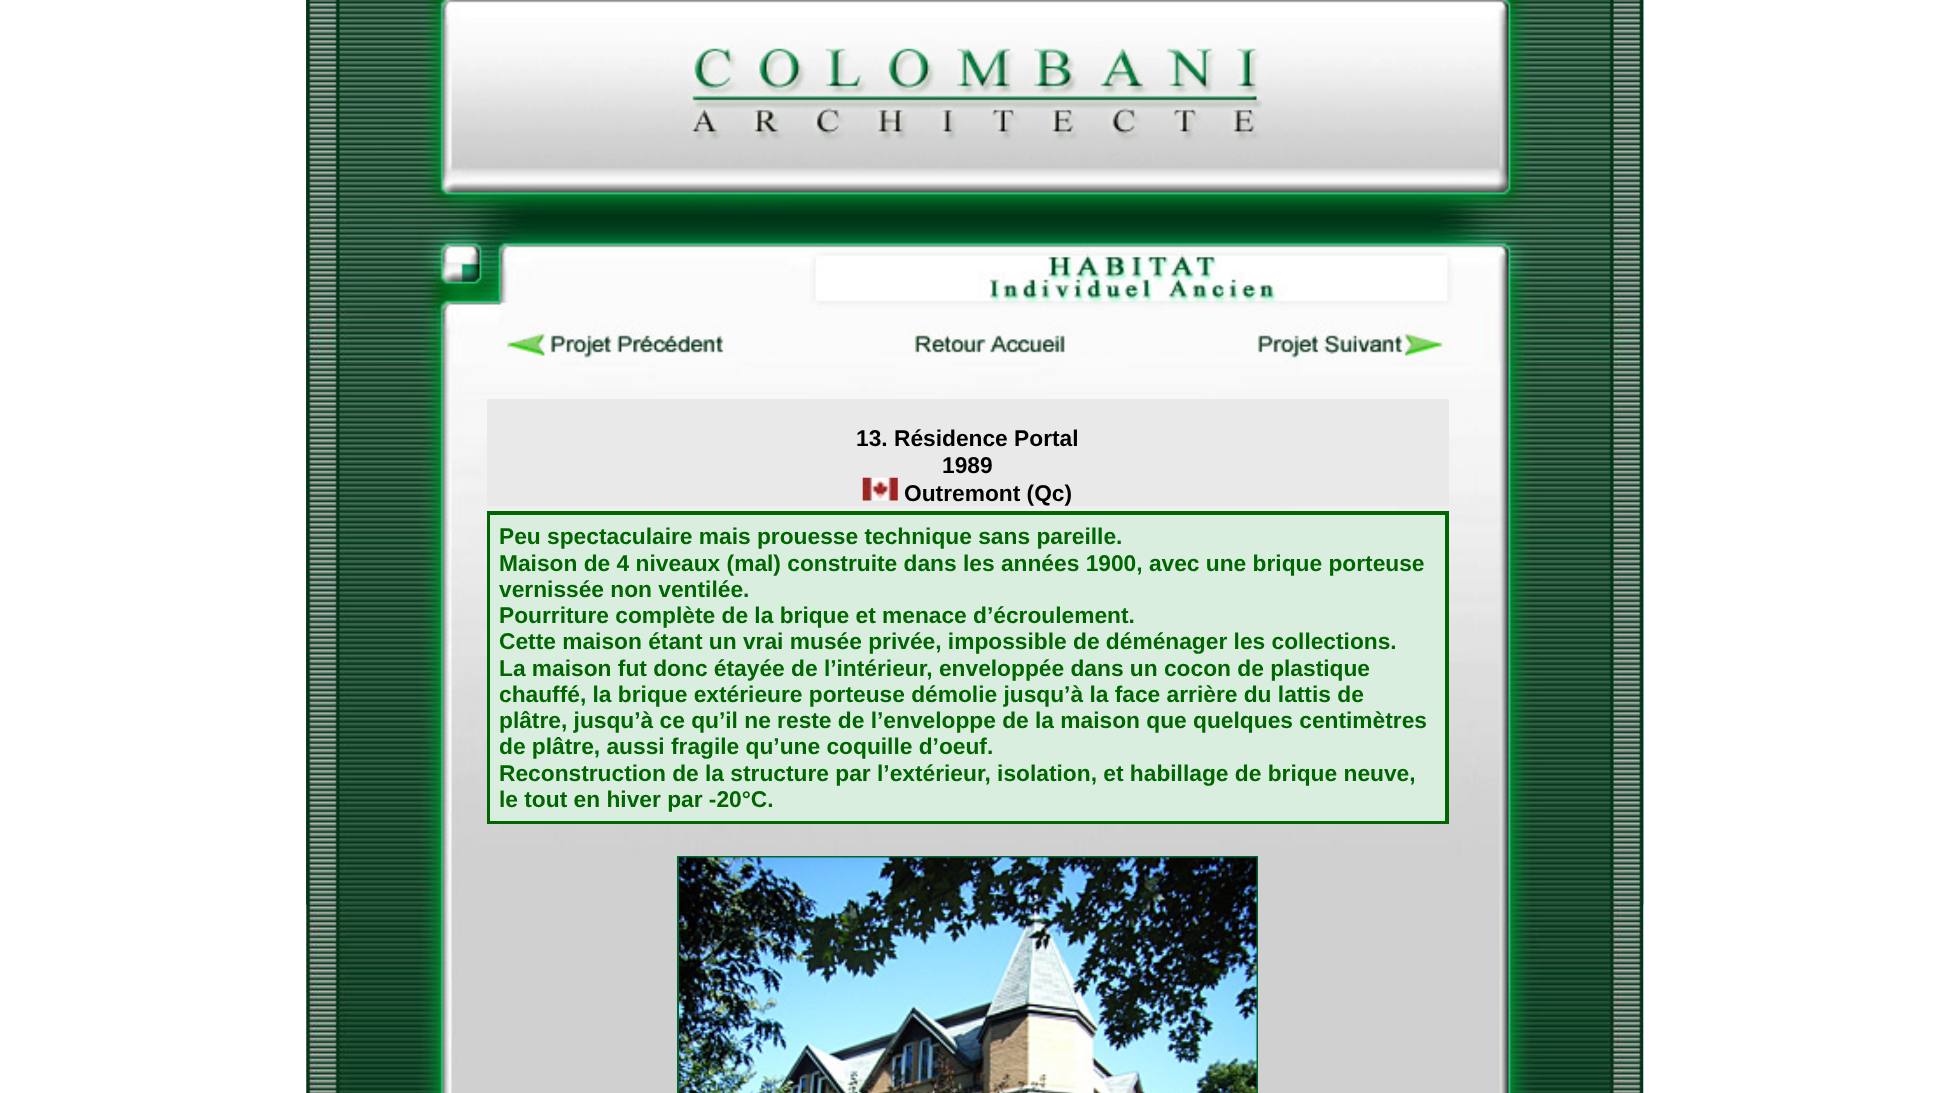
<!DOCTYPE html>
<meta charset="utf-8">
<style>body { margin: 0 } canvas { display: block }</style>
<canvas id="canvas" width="1949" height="1093"></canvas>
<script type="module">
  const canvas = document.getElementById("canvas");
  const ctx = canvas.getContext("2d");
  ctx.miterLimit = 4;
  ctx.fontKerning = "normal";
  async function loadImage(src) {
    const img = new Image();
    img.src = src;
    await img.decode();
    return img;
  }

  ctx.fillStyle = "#ffffff";
  ctx.fillRect(0, 0, 1949, 1093);
  ctx.drawImage(await loadImage("img1.png"), 306, 0, 1338, 1093);
  ctx.drawImage(await loadImage("img2.png"), 306, 0, 1338, 216);
  ctx.drawImage(await loadImage("img3.png"), 306, 215, 1338, 95);
  ctx.drawImage(await loadImage("img4.png"), 306, 309, 1338, 54);
  ctx.drawImage(await loadImage("img5.png"), 306, 362, 114, 543);
  ctx.fillStyle = "#e9e9e9";
  ctx.fillRect(487, 399, 962, 107);
  ctx.font = "bold 22.75px Liberation Sans";
  ctx.fillStyle = "#000000";
  ctx.fillText("13. Résidence Portal", 856, 446);
  ctx.fillText("1989", 942, 473);
  ctx.drawImage(await loadImage("img6.png"), 862, 477, 36, 24);
  ctx.fillText("Outremont (Qc)", 904, 501);
  ctx.strokeStyle = "#006600";
  ctx.lineWidth = 2;
  ctx.strokeRect(488, 512, 960, 311);
  ctx.fillStyle = "#daeee0";
  ctx.beginPath();
  ctx.rect(489, 514, 957, 308);
  ctx.fill();
  ctx.stroke();
  ctx.fillStyle = "#006600";
  ctx.fillText("Peu spectaculaire mais prouesse technique sans pareille.", 499, 544);
  ctx.fillText("Maison de 4 niveaux (mal) construite dans les années 1900, avec une brique porteuse", 499, 571);
  ctx.fillText("vernissée non ventilée.", 499, 597);
  ctx.fillText("Pourriture complète de la brique et menace d’écroulement.", 499, 623);
  ctx.fillText("Cette maison étant un vrai musée privée, impossible de déménager les collections.", 499, 649);
  ctx.fillText("La maison fut donc étayée de l’intérieur, enveloppée dans un cocon de plastique", 499, 676);
  ctx.fillText("chauffé, la brique extérieure porteuse démolie jusqu’à la face arrière du lattis de", 499, 702);
  ctx.fillText("plâtre, jusqu’à ce qu’il ne reste de l’enveloppe de la maison que quelques centimètres", 499, 728);
  ctx.fillText("de plâtre, aussi fragile qu’une coquille d’oeuf.", 499, 754);
  ctx.fillText("Reconstruction de la structure par l’extérieur, isolation, et habillage de brique neuve,", 499, 781);
  ctx.fillText("le tout en hiver par -20°C.", 499, 807);
  ctx.strokeStyle = "#006633";
  ctx.strokeRect(678, 857, 579, 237);
  ctx.drawImage(await loadImage("img7.png"), 679, 857, 578, 236);
  ctx.drawImage(await loadImage("img8.png"), 1478, 362, 166, 543);
</script>
